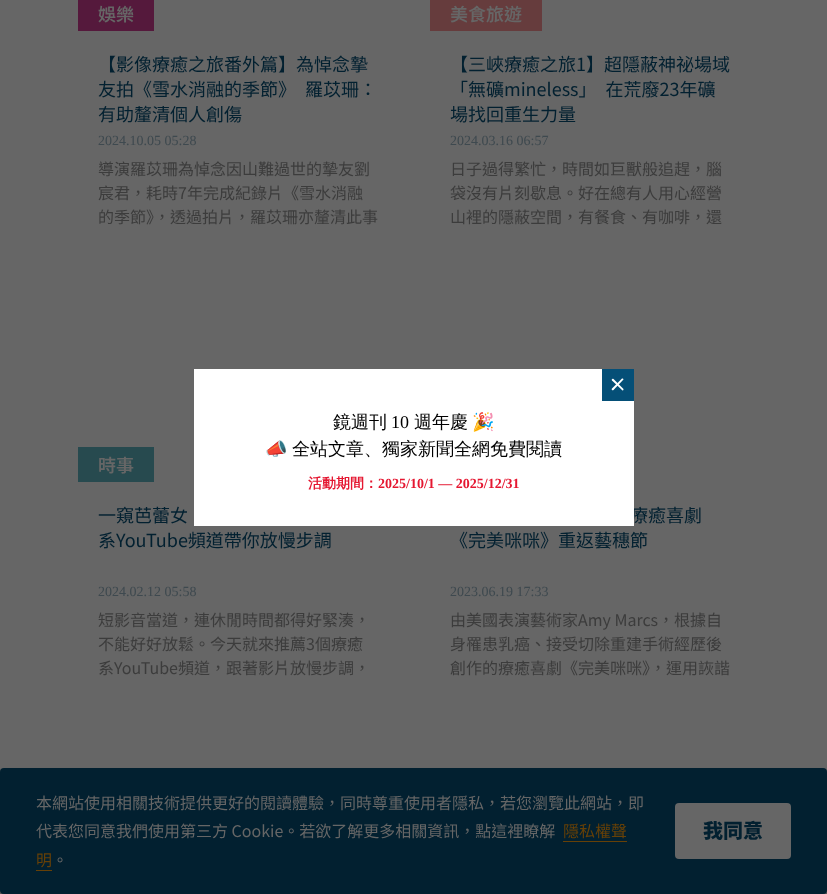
<!DOCTYPE html>
<meta charset="utf-8">
<style>body { margin: 0 } canvas { display: block }</style>
<canvas id="canvas" width="827" height="894"></canvas>
<script type="module">
  const canvas = document.getElementById("canvas");
  const ctx = canvas.getContext("2d");
  ctx.miterLimit = 4;
  ctx.fontKerning = "normal";

  ctx.fillStyle = "#666666";
  ctx.fillRect(0, 0, 827, 894);
  ctx.fillStyle = "#55193c";
  ctx.fillRect(78, 0, 76, 31);
  ctx.font = "600 18px Noto Sans TC";
  ctx.fillStyle = "#666666";
  ctx.fillText("娛樂", 98, 21);
  ctx.font = "18px Noto Sans TC";
  ctx.fillStyle = "#022030";
  ctx.fillText("【影像療癒之旅番外篇】為悼念摯", 98, 71);
  ctx.fillText("友拍《雪水消融的季節》　羅苡珊：", 98, 96);
  ctx.fillText("有助釐清個人創傷", 98, 121);
  ctx.font = "14px Liberation Serif";
  ctx.fillStyle = "#3e494f";
  ctx.fillText("2024.10.05 05:28", 98, 145);
  ctx.font = "16px Noto Sans TC";
  ctx.fillStyle = "#3c3c3c";
  ctx.fillText("導演羅苡珊為悼念因山難過世的摯友劉", 98, 175);
  ctx.fillText("宸君，耗時7年完成紀錄片《雪水消融", 98, 199);
  ctx.fillText("的季節》，透過拍片，羅苡珊亦釐清此事", 98, 223);
  ctx.fillStyle = "#663c3d";
  ctx.fillRect(430, 0, 112, 31);
  ctx.font = "600 18px Noto Sans TC";
  ctx.fillStyle = "#666666";
  ctx.fillText("美食旅遊", 450, 21);
  ctx.font = "18px Noto Sans TC";
  ctx.fillStyle = "#022030";
  ctx.fillText("【三峽療癒之旅1】超隱蔽神祕場域", 450, 71);
  ctx.fillText("「無礦mineless」　在荒廢23年礦", 450, 96);
  ctx.fillText("場找回重生力量", 450, 121);
  ctx.font = "14px Liberation Serif";
  ctx.fillStyle = "#3e494f";
  ctx.fillText("2024.03.16 06:57", 450, 145);
  ctx.font = "16px Noto Sans TC";
  ctx.fillStyle = "#3c3c3c";
  ctx.fillText("日子過得繁忙，時間如巨獸般追趕，腦", 450, 175);
  ctx.fillText("袋沒有片刻歇息。好在總有人用心經營", 450, 199);
  ctx.fillText("山裡的隱蔽空間，有餐食、有咖啡，還", 450, 223);
  ctx.fillStyle = "#274a4f";
  ctx.fillRect(78, 447, 76, 35);
  ctx.font = "600 18px Noto Sans TC";
  ctx.fillStyle = "#666666";
  ctx.fillText("時事", 98, 472);
  ctx.font = "18px Noto Sans TC";
  ctx.fillStyle = "#022030";
  ctx.fillText("一窺芭蕾女", 98, 522);
  ctx.fillText("系YouTube頻道帶你放慢步調", 98, 547);
  ctx.font = "14px Liberation Serif";
  ctx.fillStyle = "#3e494f";
  ctx.fillText("2024.02.12 05:58", 98, 596);
  ctx.font = "16px Noto Sans TC";
  ctx.fillStyle = "#3c3c3c";
  ctx.fillText("短影音當道，連休閒時間都得好緊湊，", 98, 626);
  ctx.fillText("不能好好放鬆。今天就來推薦3個療癒", 98, 650);
  ctx.fillText("系YouTube頻道，跟著影片放慢步調，", 98, 674);
  ctx.font = "18px Noto Sans TC";
  ctx.fillStyle = "#022030";
  ctx.fillText("療癒喜劇", 630, 522);
  ctx.fillText("《完美咪咪》重返藝穗節", 450, 547);
  ctx.font = "14px Liberation Serif";
  ctx.fillStyle = "#3e494f";
  ctx.fillText("2023.06.19 17:33", 450, 596);
  ctx.font = "16px Noto Sans TC";
  ctx.fillStyle = "#3c3c3c";
  ctx.fillText("由美國表演藝術家Amy Marcs，根據自", 450, 626);
  ctx.fillText("身罹患乳癌、接受切除重建手術經歷後", 450, 650);
  ctx.fillText("創作的療癒喜劇《完美咪咪》，運用詼諧", 450, 674);
  ctx.fillStyle = "#ffffff";
  ctx.fillRect(194, 369, 440, 157);
  ctx.fillStyle = "#054f77";
  ctx.fillRect(602, 369, 32, 32);
  ctx.fillStyle = "#ffffff";
  ctx.beginPath();
  ctx.moveTo(613.5, 379);
  ctx.lineTo(623.5, 389);
  ctx.bezierCurveTo(623.5, 390, 623, 390.5, 622.5, 390.5);
  ctx.lineTo(612, 380.5);
  ctx.bezierCurveTo(611, 379.5, 612.5, 378, 613.5, 379);
  ctx.closePath();
  ctx.fill();
  ctx.beginPath();
  ctx.moveTo(612, 388.5);
  ctx.lineTo(622, 378.5);
  ctx.bezierCurveTo(623, 378.5, 623.5, 379, 623.5, 379.5);
  ctx.lineTo(613.5, 390);
  ctx.bezierCurveTo(612.5, 391, 611, 389.5, 612, 388.5);
  ctx.closePath();
  ctx.fill();
  ctx.font = "500 18px WenQuanYi Zen Hei";
  ctx.fillStyle = "#000000";
  ctx.fillText("鏡週刊", 333, 428);
  ctx.font = "18px Liberation Serif";
  ctx.fillText("10", 391, 428);
  ctx.font = "500 18px WenQuanYi Zen Hei";
  ctx.fillText("週年慶", 414, 428);
  ctx.font = "18px Noto Color Emoji";
  ctx.fillText("🎉", 472, 428);
  ctx.fillText("📣", 265, 455);
  ctx.font = "500 18px WenQuanYi Zen Hei";
  ctx.fillText("全站文章、獨家新聞全網免費閱讀", 292, 455);
  ctx.font = "bold 14px WenQuanYi Zen Hei";
  ctx.fillStyle = "#e51731";
  ctx.fillText("活動期間：", 308, 488);
  ctx.font = "bold 14px Liberation Serif";
  ctx.fillText("2025/10/1 — 2025/12/31", 378, 488);
  ctx.fillStyle = "rgba(0, 0, 0, 0.25)";
  ctx.filter = "blur(2px)";
  ctx.beginPath();
  ctx.roundRect(0, 772, 827, 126, 4);
  ctx.fill();
  ctx.filter = "none";
  ctx.fillStyle = "#022030";
  ctx.beginPath();
  ctx.roundRect(0, 768, 827, 126, 4);
  ctx.fill();
  ctx.font = "16px Noto Sans TC";
  ctx.fillStyle = "#666666";
  ctx.fillText("本網站使用相關技術提供更好的閱讀體驗，同時尊重使用者隱私，若您瀏覽此網站，即", 36, 809);
  ctx.fillText("代表您同意我們使用第三方 Cookie。若欲了解更多相關資訊，點這裡瞭解", 36, 837);
  ctx.fillStyle = "#664007";
  ctx.fillText("隱私權聲", 563, 837);
  ctx.fillRect(563, 841, 64, 1);
  ctx.fillText("明", 36, 866);
  ctx.fillRect(36, 870, 16, 1);
  ctx.fillStyle = "#666666";
  ctx.fillText("。", 52, 866);
  ctx.beginPath();
  ctx.roundRect(675, 803, 116, 56, 4);
  ctx.fill();
  ctx.font = "900 20px Noto Sans TC";
  ctx.fillStyle = "#022030";
  ctx.fillText("我同意", 703, 838);
</script>
